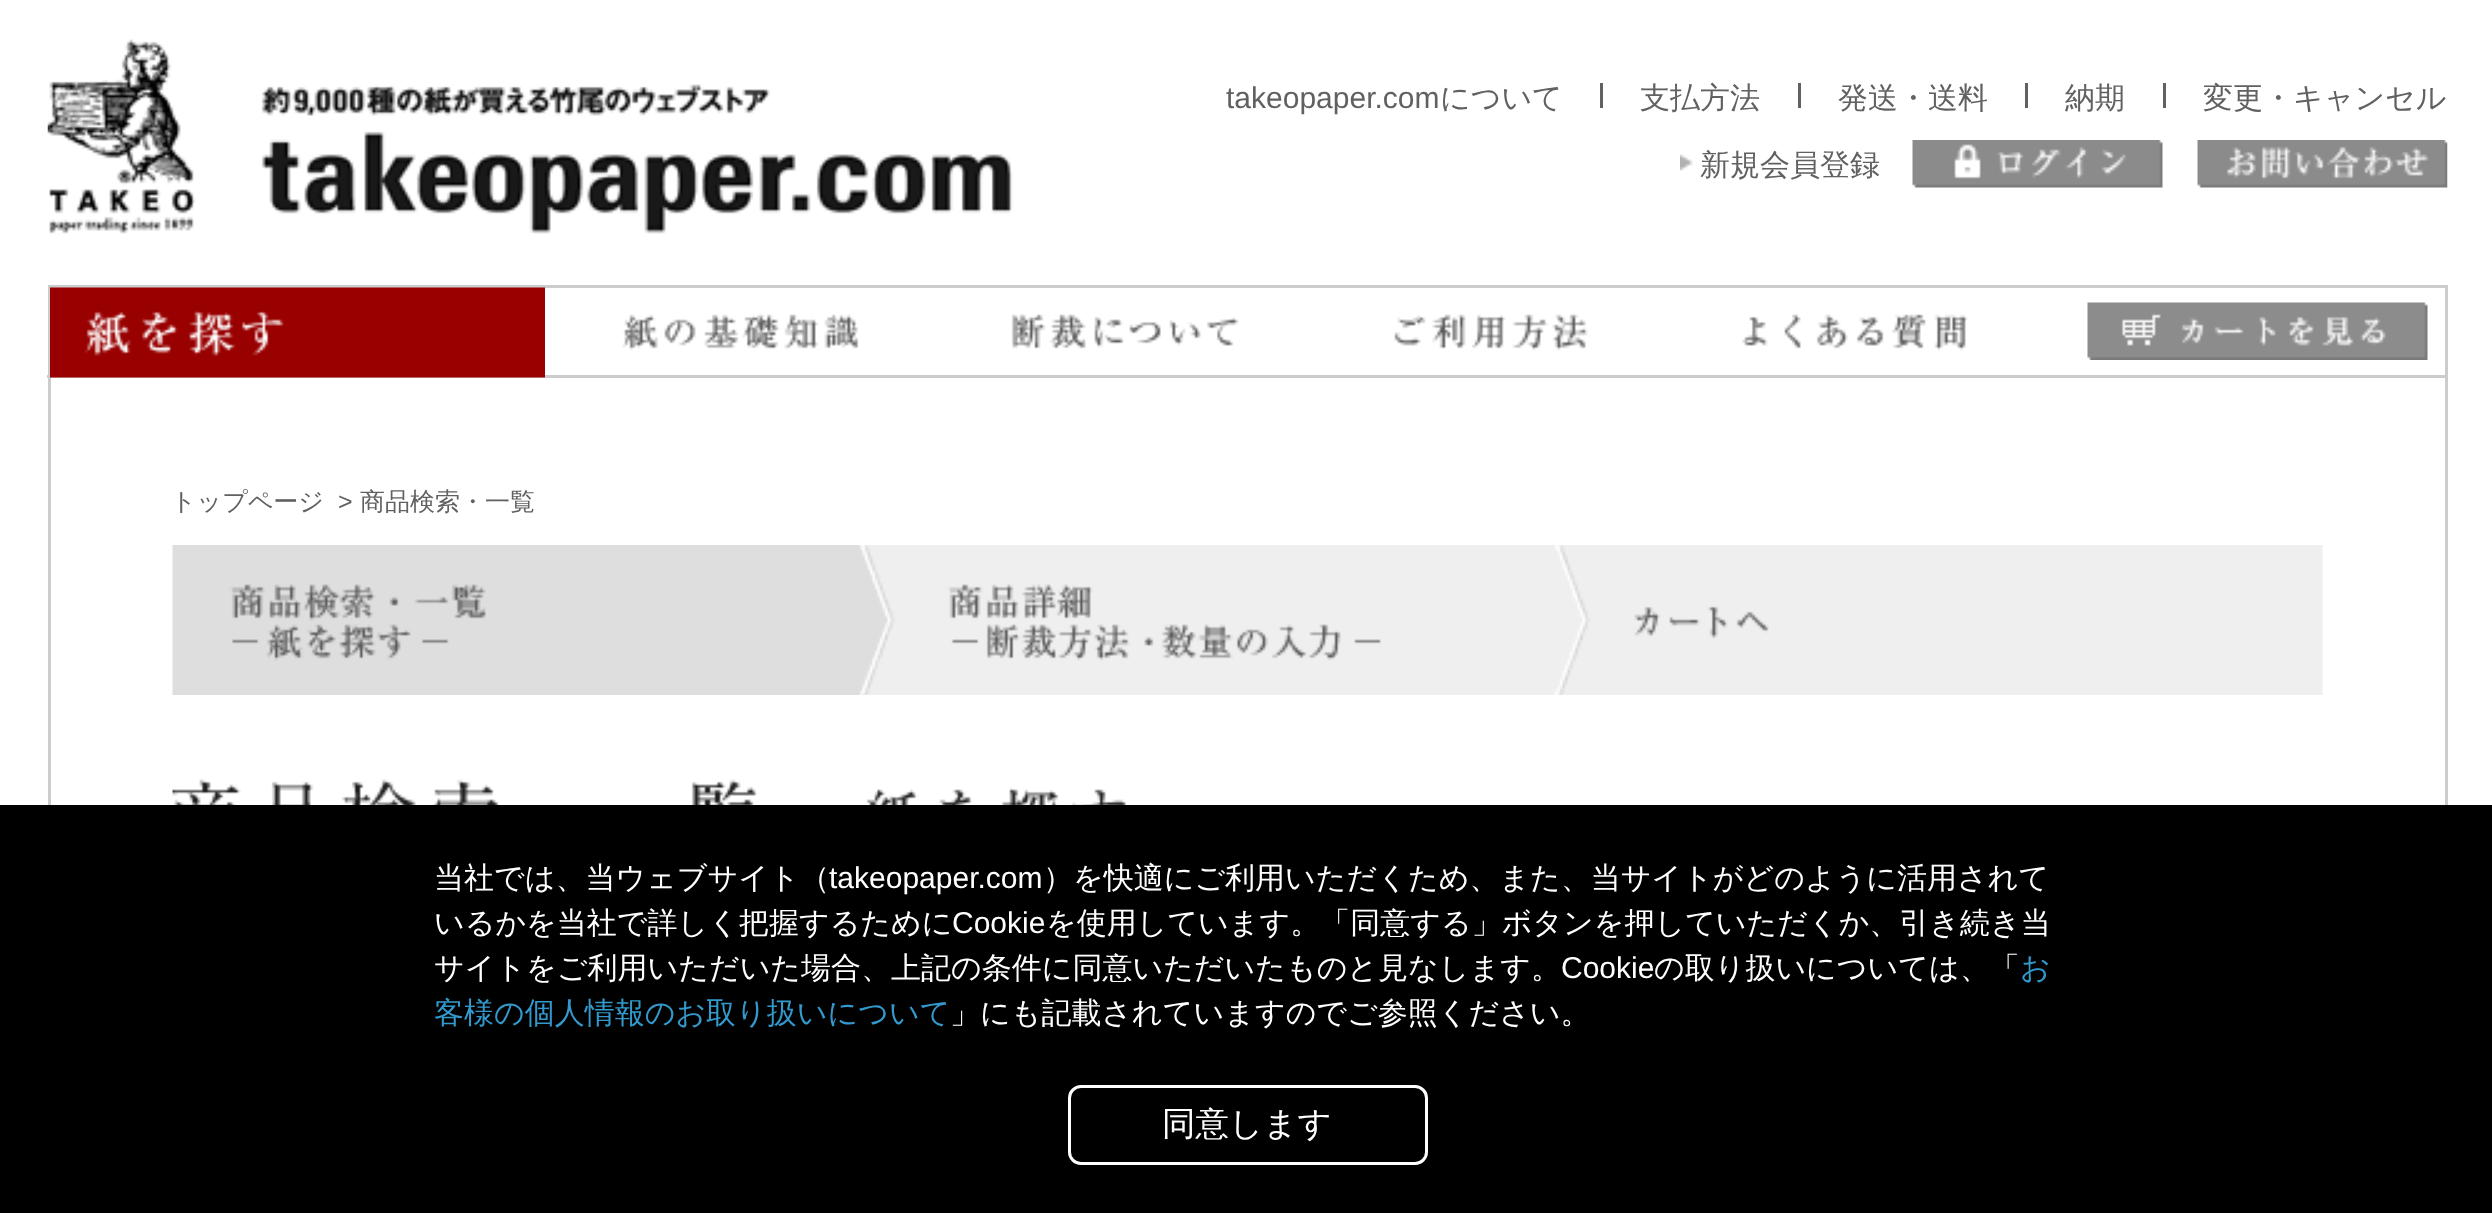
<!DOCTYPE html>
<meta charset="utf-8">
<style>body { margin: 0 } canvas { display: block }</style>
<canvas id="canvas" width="2492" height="1213"></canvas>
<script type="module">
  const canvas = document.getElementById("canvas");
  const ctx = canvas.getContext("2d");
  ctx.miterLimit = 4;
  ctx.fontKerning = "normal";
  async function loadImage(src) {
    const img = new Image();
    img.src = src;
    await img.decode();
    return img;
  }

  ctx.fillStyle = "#ffffff";
  ctx.fillRect(0, 0, 2492, 1213);
  ctx.drawImage(await loadImage("img1.png"), 47, 39, 966, 195);
  ctx.fillStyle = "#616161";
  ctx.fillRect(1600, 83, 3, 25);
  ctx.font = "30px Liberation Sans";
  ctx.fillText("takeopaper.com", 1226, 108);
  ctx.font = "500 30px WenQuanYi Zen Hei";
  ctx.fillText("について", 1440, 108);
  ctx.fillRect(1798, 83, 3, 25);
  ctx.fillText("支払方法", 1640, 108);
  ctx.fillRect(2025, 83, 3, 25);
  ctx.fillText("発送・送料", 1838, 108);
  ctx.fillRect(2163, 83, 3, 25);
  ctx.fillText("納期", 2065, 108);
  ctx.fillText("変更・キャンセル", 2203, 108);
  ctx.drawImage(await loadImage("img2.png"), 1680, 154, 13, 17);
  ctx.fillText("新規会員登録", 1700, 175);
  ctx.drawImage(await loadImage("img3.png"), 1912, 140, 251, 48);
  ctx.drawImage(await loadImage("img4.png"), 2197, 140, 251, 48);
  ctx.fillStyle = "#cccccc";
  ctx.fillRect(47, 375, 2401, 3);
  ctx.fillRect(48, 285, 2400, 3);
  ctx.fillRect(2445, 285, 3, 520);
  ctx.fillRect(48, 285, 3, 520);
  ctx.drawImage(await loadImage("img5.png"), 50, 287, 495, 91);
  ctx.drawImage(await loadImage("img6.png"), 622, 314, 237, 37);
  ctx.drawImage(await loadImage("img7.png"), 1011, 314, 228, 35);
  ctx.drawImage(await loadImage("img8.png"), 1394, 314, 194, 37);
  ctx.drawImage(await loadImage("img9.png"), 1742, 314, 226, 37);
  ctx.drawImage(await loadImage("img10.png"), 2087, 302, 341, 58);
  ctx.font = "500 25px WenQuanYi Zen Hei";
  ctx.fillStyle = "#616161";
  ctx.fillText("トップページ", 171, 510);
  ctx.font = "25px Liberation Sans";
  ctx.fillText(">", 338, 510);
  ctx.font = "500 25px WenQuanYi Zen Hei";
  ctx.fillText("商品検索・一覧", 360, 510);
  ctx.drawImage(await loadImage("img11.png"), 172, 545, 2151, 150);
  ctx.drawImage(await loadImage("img12.png"), 172, 779, 999, 26);
  ctx.fillStyle = "#000000";
  ctx.fillRect(0, 805, 2492, 408);
  ctx.font = "500 30px WenQuanYi Zen Hei";
  ctx.fillStyle = "#ffffff";
  ctx.fillText("当社では、当ウェブサイト（", 434, 888);
  ctx.font = "30px Liberation Sans";
  ctx.fillText("takeopaper.com", 829, 888);
  ctx.font = "500 30px WenQuanYi Zen Hei";
  ctx.fillText("）を快適にご利用いただくため、また、当サイトがどのように活用されて", 1043, 888);
  ctx.fillText("いるかを当社で詳しく把握するために", 434, 933);
  ctx.font = "30px Liberation Sans";
  ctx.fillText("Cookie", 952, 933);
  ctx.font = "500 30px WenQuanYi Zen Hei";
  ctx.fillText("を使用しています。「同意する」ボタンを押していただくか、引き続き当", 1046, 933);
  ctx.fillText("サイトをご利用いただいた場合、上記の条件に同意いただいたものと見なします。", 434, 978);
  ctx.font = "30px Liberation Sans";
  ctx.fillText("Cookie", 1561, 978);
  ctx.font = "500 30px WenQuanYi Zen Hei";
  ctx.fillText("の取り扱いについては、「", 1654, 978);
  ctx.fillStyle = "#3399cc";
  ctx.fillText("お", 2020, 978);
  ctx.fillText("客様の個人情報のお取り扱いについて", 434, 1023);
  ctx.fillStyle = "#ffffff";
  ctx.fillText("」にも記載されていますのでご参照ください。", 950, 1023);
  ctx.beginPath();
  ctx.roundRect(1069.5, 1086.5, 357, 77, 11.5);
  ctx.strokeStyle = "#ffffff";
  ctx.lineWidth = 3;
  ctx.stroke();
  ctx.font = "500 33.5px WenQuanYi Zen Hei";
  ctx.fillText("同意します", 1162, 1135);
</script>
